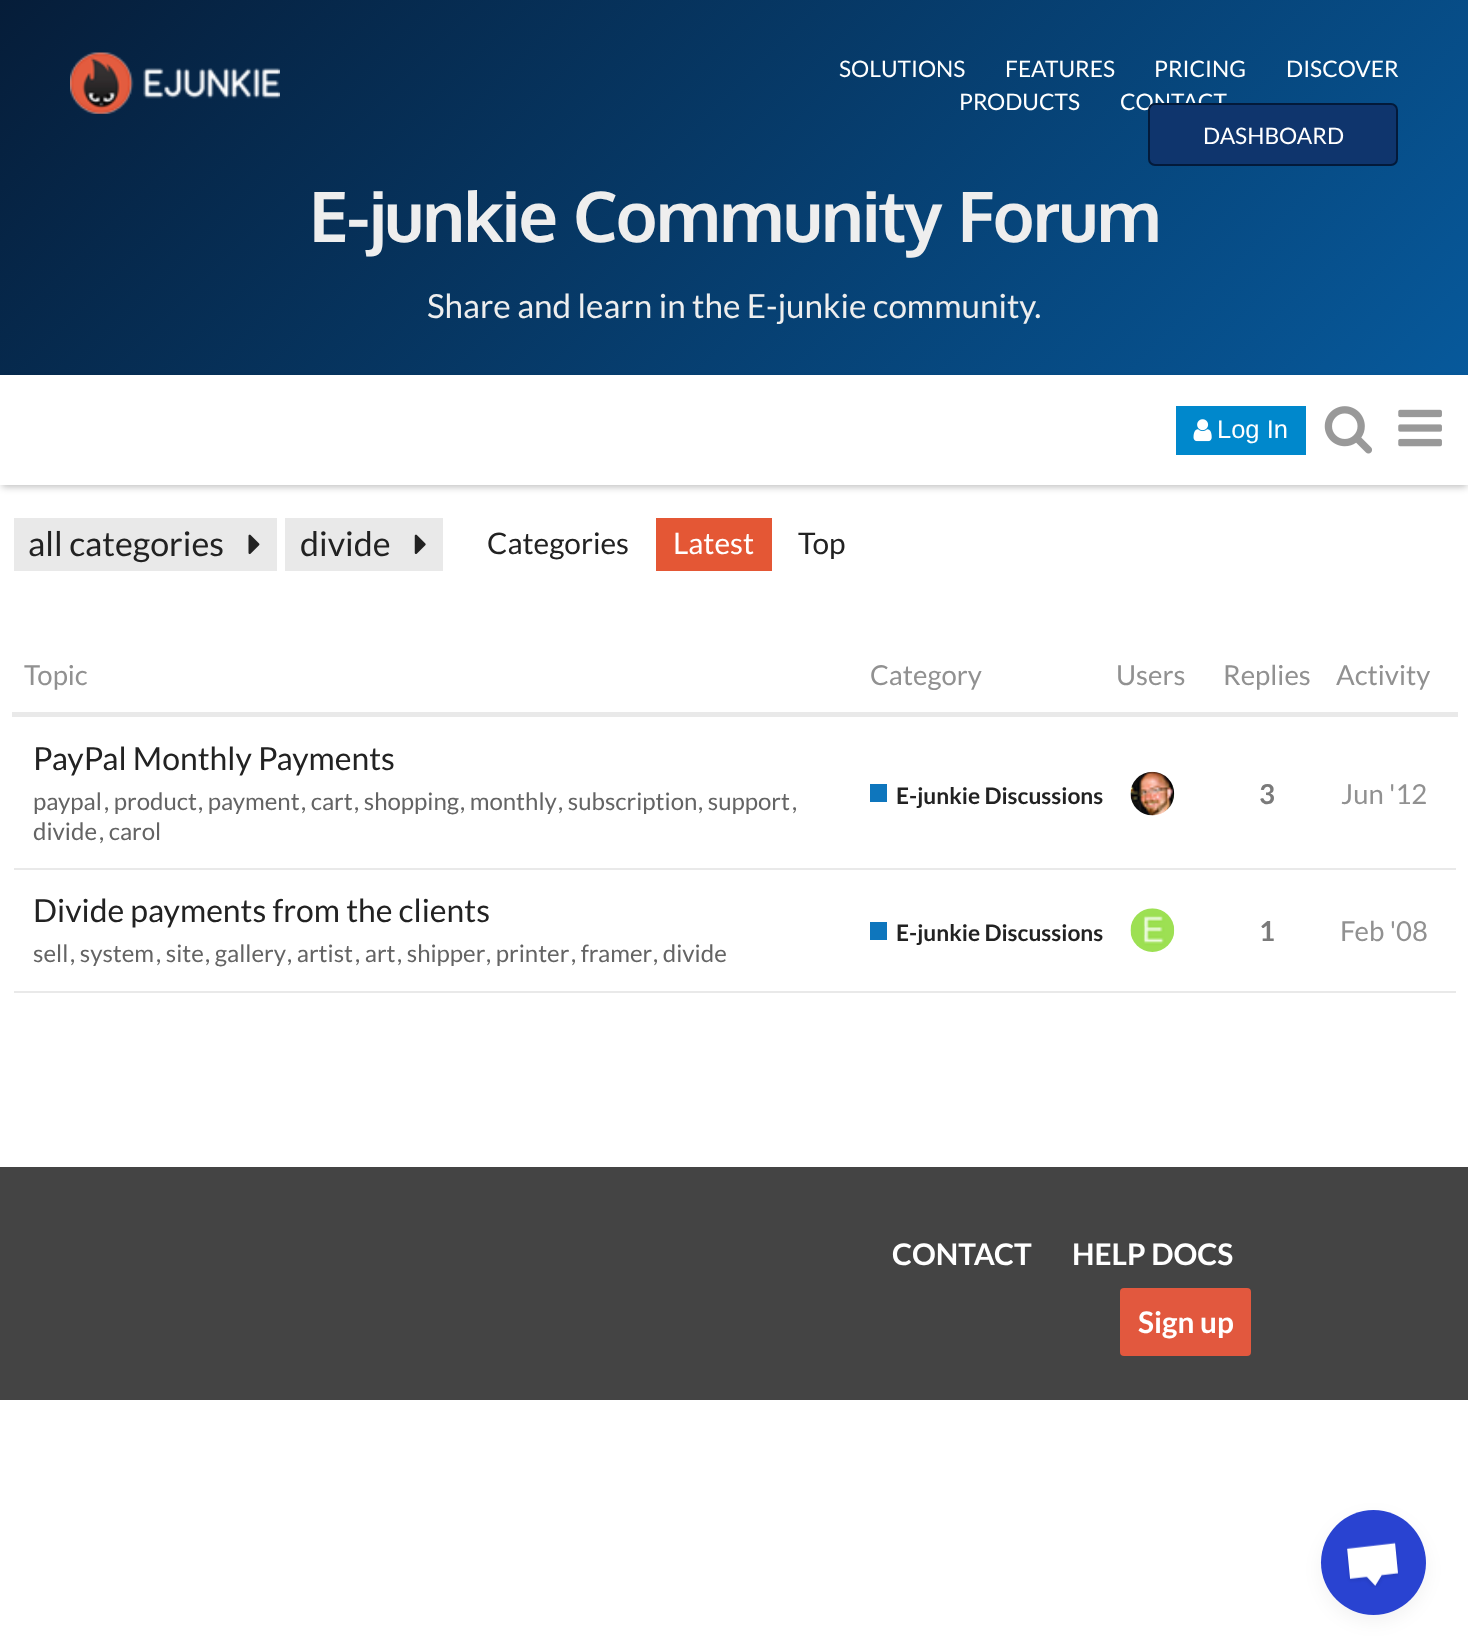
<!DOCTYPE html>
<meta charset="utf-8">
<style>body { margin: 0 } canvas { display: block }</style>
<canvas id="canvas" width="1468" height="1650"></canvas>
<script type="module">
  const canvas = document.getElementById("canvas");
  const ctx = canvas.getContext("2d");
  ctx.miterLimit = 4;
  ctx.fontKerning = "normal";
  async function loadImage(src) {
    const img = new Image();
    img.src = src;
    await img.decode();
    return img;
  }
  let gradient;

  ctx.fillStyle = "#ffffff";
  ctx.fillRect(0, 0, 1468, 1650);
  gradient = ctx.createLinearGradient(273, -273, 1195, 648);
  gradient.addColorStop(0, "#061d39");
  gradient.addColorStop(1, "#07599b");
  ctx.fillStyle = gradient;
  ctx.fillRect(0, 0, 1468, 375);
  ctx.drawImage(await loadImage("img1.png"), 70, 52, 210, 62);
  ctx.font = "22.75px Lato";
  ctx.fillStyle = "#ffffff";
  ctx.fillText("SOLUTIONS", 839, 77);
  ctx.fillText("FEATURES", 1005, 77);
  ctx.fillText("PRICING", 1154, 77);
  ctx.fillText("DISCOVER", 1286, 77);
  ctx.fillText("PRODUCTS", 959, 110);
  ctx.fillText("CONTACT", 1120, 110);
  ctx.fillStyle = "#0f356d";
  ctx.beginPath();
  ctx.roundRect(1149, 104, 248, 61, 6);
  ctx.fill();
  ctx.strokeStyle = "#031a3a";
  ctx.lineWidth = 2;
  ctx.stroke();
  ctx.fillStyle = "#ffffff";
  ctx.fillText("DASHBOARD", 1203, 144);
  ctx.letterSpacing = "-1.75px";
  ctx.font = "bold 70px Oxygen";
  ctx.fillStyle = "#eeeeee";
  ctx.fillText("E-junkie Community Forum", 309, 242);
  ctx.letterSpacing = "0px";
  ctx.font = "33.25px Lato";
  ctx.fillText("Share and learn in the E-junkie community.", 427, 318);
  ctx.fillStyle = "rgba(0, 0, 0, 0.25)";
  ctx.filter = "blur(3.5px)";
  ctx.beginPath();
  ctx.rect(2, 380, 1465, 107);
  ctx.fill();
  ctx.filter = "none";
  ctx.fillStyle = "#ffffff";
  ctx.fillRect(0, 375, 1468, 110);
  ctx.fillStyle = "#0088cc";
  ctx.fillRect(1176, 406, 130, 49);
  ctx.drawImage(await loadImage("img2.png"), 1193, 419, 19, 23);
  ctx.font = "25.5px Liberation Sans";
  ctx.fillStyle = "#ffffff";
  ctx.fillText("Log In", 1217, 438);
  ctx.drawImage(await loadImage("img3.png"), 1324, 406, 48, 48);
  ctx.drawImage(await loadImage("img4.png"), 1398, 409, 44, 38);
  ctx.fillStyle = "#e9e9e9";
  ctx.fillRect(14, 518, 263, 53);
  ctx.font = "34px Lato";
  ctx.fillStyle = "#222222";
  ctx.fillText("all categories", 28, 556);
  ctx.drawImage(await loadImage("img5.png"), 248, 534, 12, 21);
  ctx.fillStyle = "#e9e9e9";
  ctx.fillRect(285, 518, 158, 53);
  ctx.fillStyle = "#222222";
  ctx.fillText("divide", 300, 556);
  ctx.drawImage(await loadImage("img6.png"), 414, 534, 12, 20);
  ctx.font = "29.75px Lato";
  ctx.fillText("Categories", 487, 554);
  ctx.fillStyle = "#e45735";
  ctx.fillRect(656, 518, 116, 53);
  ctx.fillStyle = "#ffffff";
  ctx.fillText("Latest", 673, 554);
  ctx.fillStyle = "#222222";
  ctx.fillText("Top", 798, 554);
  ctx.font = "27.5px Lato";
  ctx.fillStyle = "#919191";
  ctx.fillText("Topic", 24, 685);
  ctx.fillText("Category", 870, 685);
  ctx.fillText("Users", 1116, 685);
  ctx.fillText("Replies", 1223, 685);
  ctx.fillText("Activity", 1336, 685);
  ctx.fillStyle = "#e9e9e9";
  ctx.fillRect(14, 868, 1442, 2);
  ctx.fillRect(12, 712, 1446, 5);
  ctx.font = "31.9px Lato";
  ctx.fillStyle = "#222222";
  ctx.fillText("PayPal Monthly Payments", 33, 770);
  ctx.font = "24px Lato";
  ctx.fillStyle = "#646464";
  ctx.fillText("paypal", 33, 810);
  ctx.fillText(", product", 104, 810);
  ctx.fillText(", payment", 198, 810);
  ctx.fillText(", cart", 301, 810);
  ctx.fillText(", shopping", 354, 810);
  ctx.fillText(", monthly", 460, 810);
  ctx.fillText(", subscription", 558, 810);
  ctx.fillText(", support", 698, 810);
  ctx.fillText(",", 792, 810);
  ctx.fillText("divide", 33, 840);
  ctx.fillText(", carol", 99, 840);
  ctx.fillStyle = "#0e76bd";
  ctx.fillRect(870, 784, 17, 18);
  ctx.font = "bold 22.75px Lato";
  ctx.fillStyle = "#222222";
  ctx.fillText("E-junkie Discussions", 896, 804);
  ctx.drawImage(await loadImage("img7.png"), 1130, 771, 45, 45);
  ctx.font = "bold 27.5px Lato";
  ctx.fillStyle = "#7a7a7a";
  ctx.fillText("3", 1259, 804);
  ctx.font = "27.5px Lato";
  ctx.fillStyle = "#919191";
  ctx.fillText("Jun '12", 1341, 804);
  ctx.fillStyle = "#e9e9e9";
  ctx.fillRect(14, 991, 1442, 2);
  ctx.font = "31.9px Lato";
  ctx.fillStyle = "#222222";
  ctx.fillText("Divide payments from the clients", 33, 922);
  ctx.font = "24px Lato";
  ctx.fillStyle = "#646464";
  ctx.fillText("sell", 33, 962);
  ctx.fillText(", system", 70, 962);
  ctx.fillText(", site", 156, 962);
  ctx.fillText(", gallery", 205, 962);
  ctx.fillText(", artist", 287, 962);
  ctx.fillText(", art", 355, 962);
  ctx.fillText(", shipper", 397, 962);
  ctx.fillText(", printer", 486, 962);
  ctx.fillText(", framer", 571, 962);
  ctx.fillText(", divide", 653, 962);
  ctx.fillStyle = "#0e76bd";
  ctx.fillRect(870, 922, 17, 18);
  ctx.font = "bold 22.75px Lato";
  ctx.fillStyle = "#222222";
  ctx.fillText("E-junkie Discussions", 896, 941);
  ctx.drawImage(await loadImage("img8.png"), 1130, 908, 45, 44);
  ctx.font = "bold 27.5px Lato";
  ctx.fillStyle = "#7a7a7a";
  ctx.fillText("1", 1259, 941);
  ctx.font = "27.5px Lato";
  ctx.fillStyle = "#919191";
  ctx.fillText("Feb '08", 1340, 941);
  ctx.fillStyle = "#444444";
  ctx.fillRect(0, 1167, 1468, 233);
  ctx.font = "bold 29.75px Lato";
  ctx.fillStyle = "#ffffff";
  ctx.fillText("CONTACT", 892, 1265);
  ctx.fillText("HELP DOCS", 1072, 1265);
  ctx.fillStyle = "#e2583e";
  ctx.beginPath();
  ctx.roundRect(1120, 1288, 131, 68, 4);
  ctx.fill();
  ctx.fillStyle = "#ffffff";
  ctx.fillText("Sign up", 1138, 1333);
  ctx.fillStyle = "rgba(0, 0, 0, 0.05)";
  ctx.filter = "blur(9px)";
  ctx.beginPath();
  ctx.roundRect(1321, 1517, 105, 105, 52.5);
  ctx.fill();
  ctx.filter = "none";
  ctx.fillStyle = "#2943d1";
  ctx.beginPath();
  ctx.arc(1373.5, 1562.5, 52.5, 0, Math.PI * 2);
  ctx.fill();
  ctx.drawImage(await loadImage("img9.png"), 1346, 1542, 53, 45);
</script>
